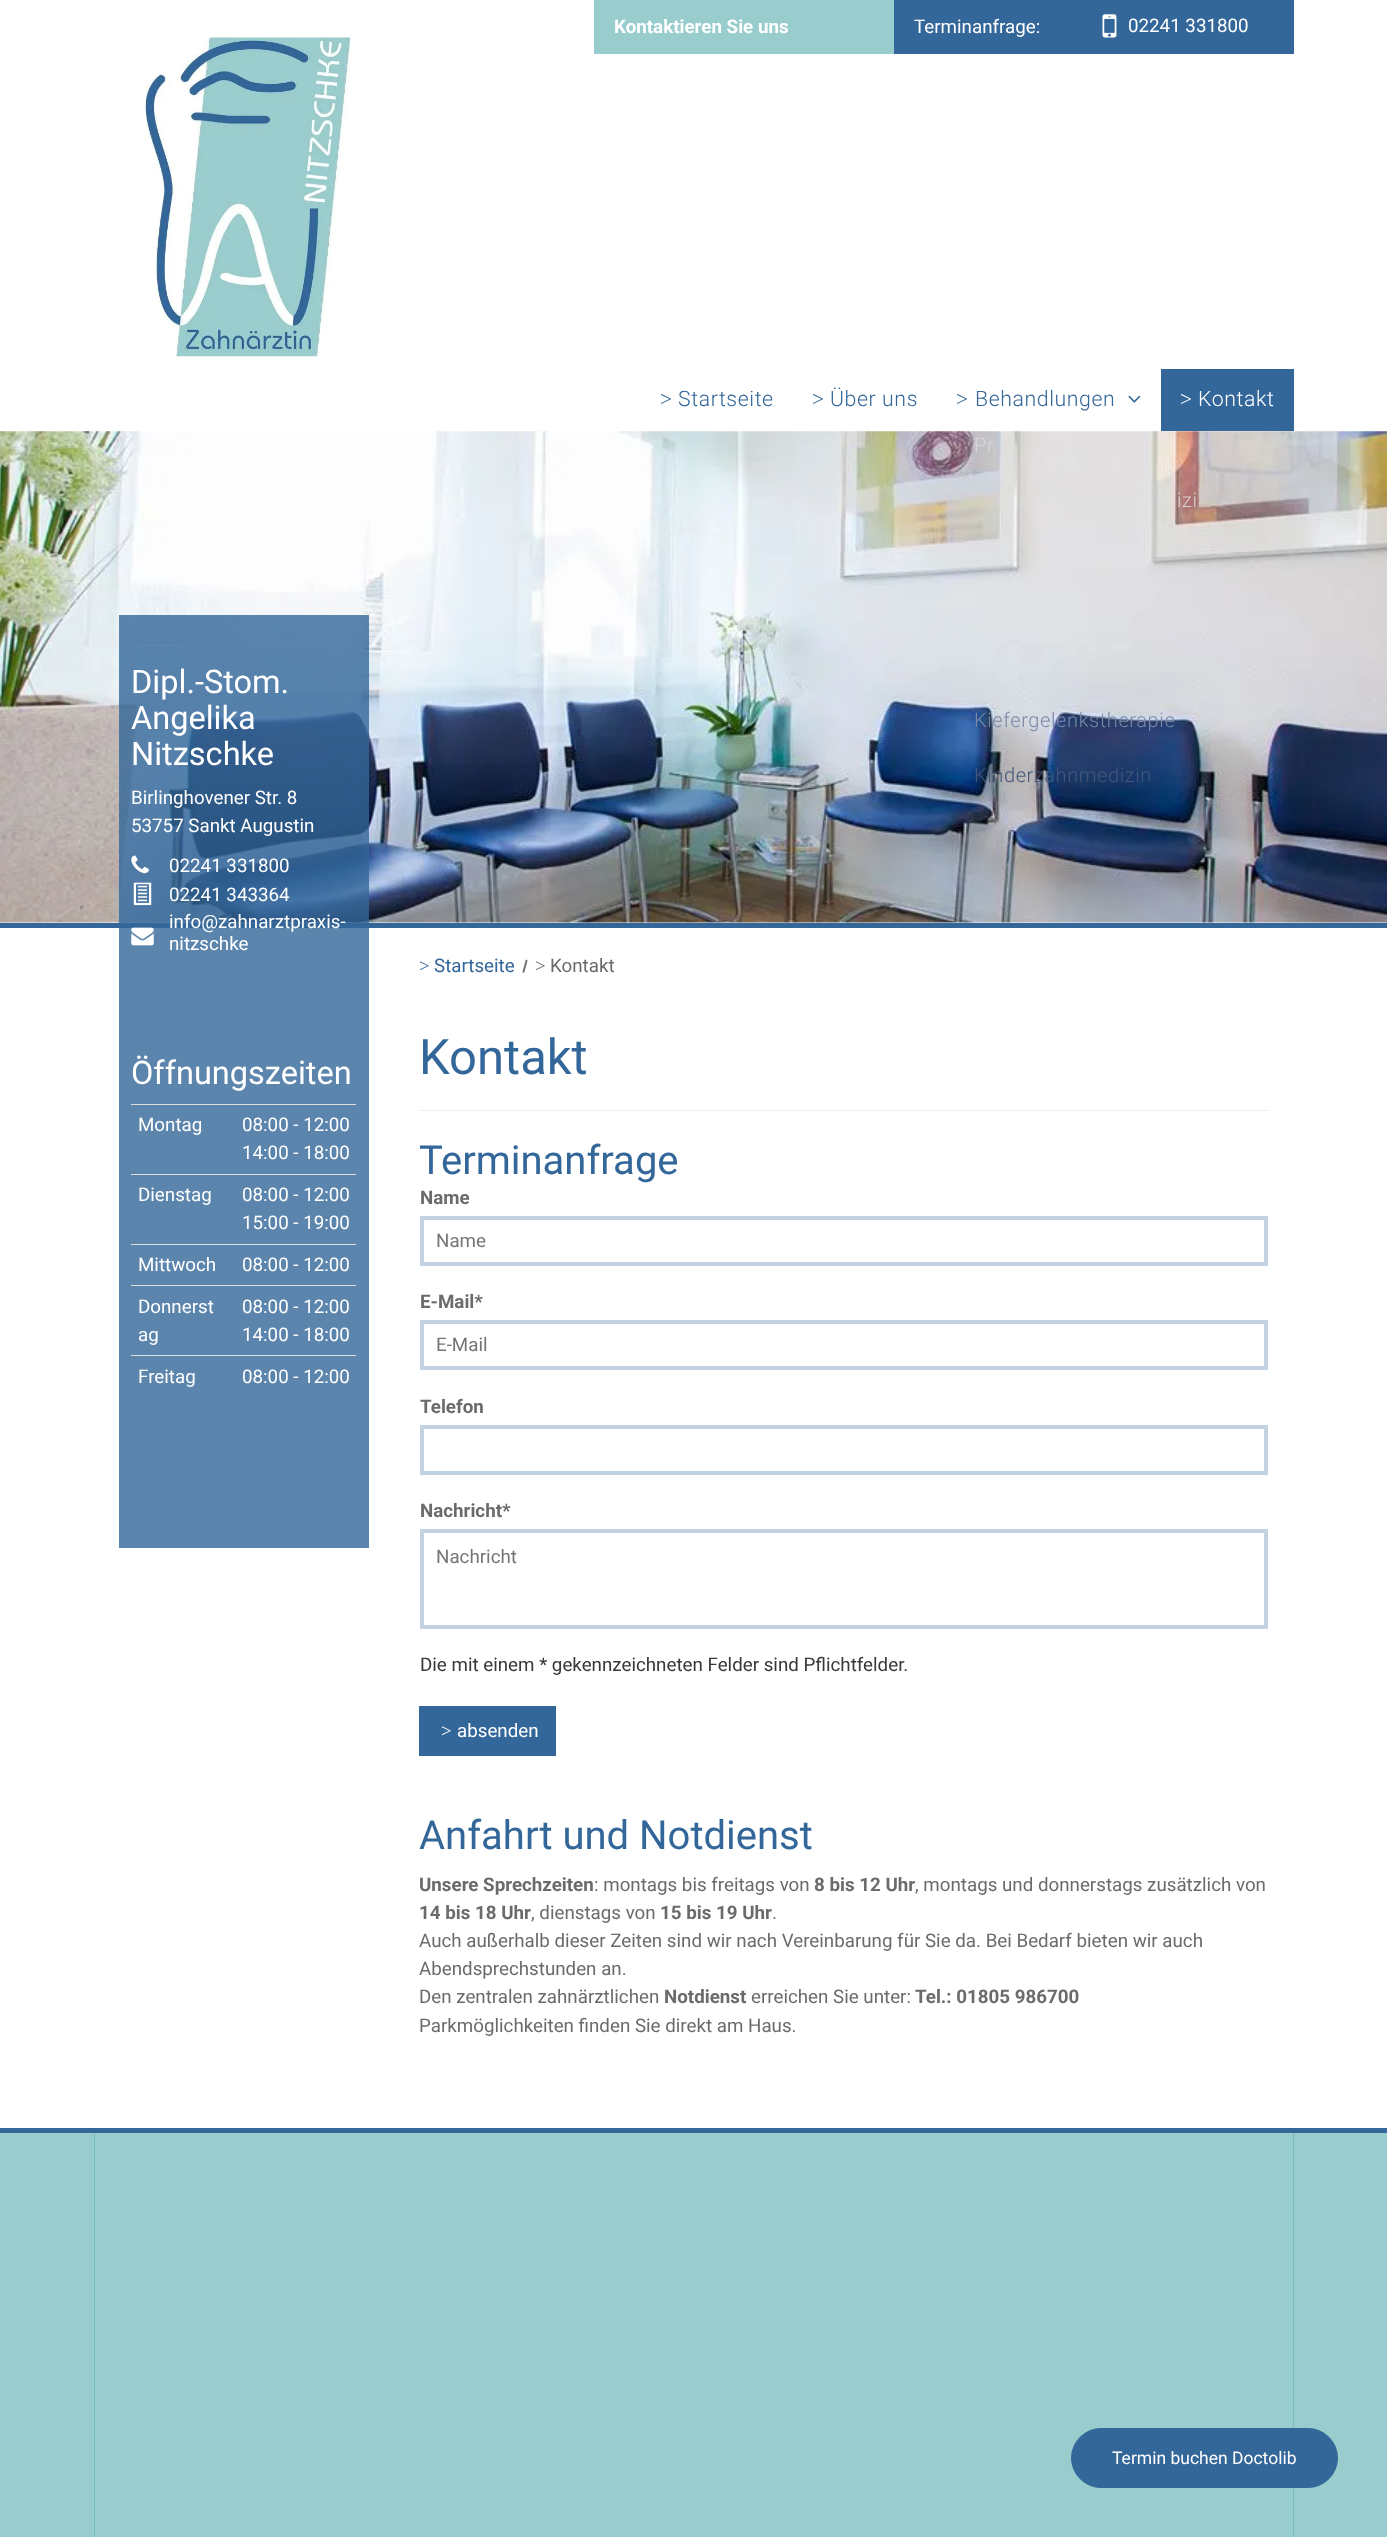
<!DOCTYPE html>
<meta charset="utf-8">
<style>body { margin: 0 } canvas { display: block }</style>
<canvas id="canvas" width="1387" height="2537"></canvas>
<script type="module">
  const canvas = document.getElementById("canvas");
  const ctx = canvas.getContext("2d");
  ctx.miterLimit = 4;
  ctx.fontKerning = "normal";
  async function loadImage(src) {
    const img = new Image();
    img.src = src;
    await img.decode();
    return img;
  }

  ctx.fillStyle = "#ffffff";
  ctx.fillRect(0, 0, 1387, 2537);
  ctx.fillStyle = "#99cccc";
  ctx.fillRect(594, 0, 300, 54);
  ctx.font = "bold 18.75px Roboto";
  ctx.fillStyle = "#ffffff";
  ctx.fillText("Kontaktieren Sie uns", 614, 33);
  ctx.fillStyle = "#336699";
  ctx.fillRect(894, 0, 400, 54);
  ctx.font = "18.75px Roboto";
  ctx.fillStyle = "#ffffff";
  ctx.fillText("Terminanfrage:", 914, 33);
  ctx.drawImage(await loadImage("img1.png"), 1102, 14, 15, 24);
  ctx.fillText("02241 331800", 1128, 32);
  ctx.drawImage(await loadImage("img2.png"), 144, 37, 206, 320);
  ctx.letterSpacing = "0.6px";
  ctx.font = "21.25px Liberation Serif";
  ctx.fillStyle = "#336699";
  ctx.fillText("˃", 660, 406);
  ctx.font = "300 21.25px Roboto";
  ctx.fillText("Startseite", 678, 406);
  ctx.font = "21.25px Liberation Serif";
  ctx.fillText("˃", 812, 406);
  ctx.font = "300 21.25px Roboto";
  ctx.fillText("Über uns", 830, 406);
  ctx.font = "21.25px Liberation Serif";
  ctx.fillText("˃", 956, 406);
  ctx.font = "300 21.25px Roboto";
  ctx.fillText("Behandlungen", 975, 406);
  ctx.drawImage(await loadImage("img3.png"), 1128, 395, 13, 8);
  ctx.drawImage(await loadImage("img4.png"), 0, 431, 1387, 492);
  ctx.font = "300 20px Roboto";
  ctx.fillStyle = "#d8d6d7";
  ctx.fillText("Pr", 974, 452);
  ctx.fillStyle = "#d8d2d0";
  ctx.fillText("izi", 1177, 507);
  ctx.fillStyle = "#7a89a6";
  ctx.fillText("Kiefergelenkstherapie", 974, 727);
  ctx.fillStyle = "#43587a";
  ctx.fillText("Kinderzahnmedizin", 974, 782);
  ctx.fillStyle = "#336699";
  ctx.fillRect(1161, 369, 133, 62);
  ctx.font = "21.25px Liberation Serif";
  ctx.fillStyle = "#ffffff";
  ctx.fillText("˃", 1180, 406);
  ctx.font = "300 21.25px Roboto";
  ctx.fillText("Kontakt", 1198, 406);
  ctx.fillStyle = "#336799";
  ctx.fillRect(0, 923, 1387, 5);
  ctx.fillStyle = "rgba(51, 102, 153, 0.8)";
  ctx.fillRect(119, 615, 250, 933);
  ctx.letterSpacing = "0px";
  ctx.font = "32.5px Roboto";
  ctx.fillStyle = "#ffffff";
  ctx.fillText("Dipl.-Stom.", 131, 693);
  ctx.fillText("Angelika", 131, 729);
  ctx.fillText("Nitzschke", 131, 765);
  ctx.font = "18.75px Roboto";
  ctx.fillText("Birlinghovener Str. 8", 131, 804);
  ctx.fillText("53757 Sankt Augustin", 131, 832);
  ctx.drawImage(await loadImage("img5.png"), 131, 855, 18, 19);
  ctx.fillText("02241 331800", 169, 872);
  ctx.drawImage(await loadImage("img6.png"), 133, 882, 19, 24);
  ctx.fillText("02241 343364", 169, 901);
  ctx.drawImage(await loadImage("img7.png"), 131, 927, 23, 19);
  ctx.fillText("info@zahnarztpraxis-", 169, 928);
  ctx.fillText("nitzschke", 169, 950);
  ctx.font = "32.5px Roboto";
  ctx.fillText("Öffnungszeiten", 131, 1084);
  ctx.fillStyle = "#dedede";
  ctx.fillRect(131, 1104, 225, 1);
  ctx.font = "18.75px Roboto";
  ctx.fillStyle = "#ffffff";
  ctx.fillText("Montag", 138, 1131);
  ctx.fillText("08:00 - 12:00", 242, 1131);
  ctx.fillText("14:00 - 18:00", 242, 1159);
  ctx.fillStyle = "#dedede";
  ctx.fillRect(131, 1174, 225, 1);
  ctx.fillStyle = "#ffffff";
  ctx.fillText("Dienstag", 138, 1201);
  ctx.fillText("08:00 - 12:00", 242, 1201);
  ctx.fillText("15:00 - 19:00", 242, 1229);
  ctx.fillStyle = "#dedede";
  ctx.fillRect(131, 1244, 225, 1);
  ctx.fillStyle = "#ffffff";
  ctx.fillText("Mittwoch", 138, 1271);
  ctx.fillText("08:00 - 12:00", 242, 1271);
  ctx.fillStyle = "#dedede";
  ctx.fillRect(131, 1285, 225, 1);
  ctx.fillStyle = "#ffffff";
  ctx.fillText("Donnerst", 138, 1313);
  ctx.fillText("ag", 138, 1341);
  ctx.fillText("08:00 - 12:00", 242, 1313);
  ctx.fillText("14:00 - 18:00", 242, 1341);
  ctx.fillStyle = "#dedede";
  ctx.fillRect(131, 1355, 225, 1);
  ctx.fillStyle = "#ffffff";
  ctx.fillText("Freitag", 138, 1383);
  ctx.fillText("08:00 - 12:00", 242, 1383);
  ctx.font = "18.75px Liberation Serif";
  ctx.fillStyle = "#336699";
  ctx.fillText("˃", 419, 972);
  ctx.font = "18.75px Roboto";
  ctx.fillText("Startseite", 434, 972);
  ctx.drawImage(await loadImage("img8.png"), 522, 959, 6, 14);
  ctx.font = "18.75px Liberation Serif";
  ctx.fillStyle = "#6b6b6b";
  ctx.fillText("˃", 535, 972);
  ctx.font = "18.75px Roboto";
  ctx.fillText("Kontakt", 550, 972);
  ctx.font = "49px Roboto";
  ctx.fillStyle = "#336699";
  ctx.fillText("Kontakt", 419, 1074);
  ctx.fillStyle = "#eeeeee";
  ctx.fillRect(419, 1110, 850, 1);
  ctx.font = "40px Roboto";
  ctx.fillStyle = "#336699";
  ctx.fillText("Terminanfrage", 419, 1174);
  ctx.font = "bold 18.75px Roboto";
  ctx.fillStyle = "#6b6b6b";
  ctx.fillText("Name", 420, 1204);
  ctx.strokeStyle = "#c3d2e1";
  ctx.lineWidth = 4;
  ctx.strokeRect(422, 1218, 844, 46);
  ctx.font = "18.75px Roboto";
  ctx.fillStyle = "#757575";
  ctx.fillText("Name", 436, 1247);
  ctx.font = "bold 18.75px Roboto";
  ctx.fillStyle = "#6b6b6b";
  ctx.fillText("E-Mail*", 420, 1308);
  ctx.strokeRect(422, 1322, 844, 46);
  ctx.font = "18.75px Roboto";
  ctx.fillStyle = "#757575";
  ctx.fillText("E-Mail", 436, 1351);
  ctx.font = "bold 18.75px Roboto";
  ctx.fillStyle = "#6b6b6b";
  ctx.fillText("Telefon", 420, 1413);
  ctx.strokeRect(422, 1427, 844, 46);
  ctx.fillText("Nachricht*", 420, 1517);
  ctx.strokeRect(422, 1531, 844, 96);
  ctx.font = "18.75px Roboto";
  ctx.fillStyle = "#757575";
  ctx.fillText("Nachricht", 436, 1563);
  ctx.fillStyle = "#383838";
  ctx.fillText("Die mit einem * gekennzeichneten Felder sind Pflichtfelder.", 420, 1671);
  ctx.fillStyle = "#336699";
  ctx.fillRect(419, 1706, 137, 50);
  ctx.font = "18.75px Liberation Serif";
  ctx.fillStyle = "#ffffff";
  ctx.fillText("˃", 441, 1737);
  ctx.font = "18.75px Roboto";
  ctx.fillText("absenden", 457, 1737);
  ctx.font = "40px Roboto";
  ctx.fillStyle = "#336699";
  ctx.fillText("Anfahrt und Notdienst", 419, 1849);
  ctx.font = "bold 18.75px Roboto";
  ctx.fillStyle = "#6b6b6b";
  ctx.fillText("Unsere Sprechzeiten", 419, 1891);
  ctx.font = "18.75px Roboto";
  ctx.fillText(": montags bis freitags von", 594, 1891);
  ctx.font = "bold 18.75px Roboto";
  ctx.fillText("8 bis 12 Uhr", 814, 1891);
  ctx.font = "18.75px Roboto";
  ctx.fillText(", montags und donnerstags zusätzlich von", 915, 1891);
  ctx.font = "bold 18.75px Roboto";
  ctx.fillText("14 bis 18 Uhr", 419, 1919);
  ctx.font = "18.75px Roboto";
  ctx.fillText(", dienstags von", 531, 1919);
  ctx.font = "bold 18.75px Roboto";
  ctx.fillText("15 bis 19 Uhr", 660, 1919);
  ctx.font = "18.75px Roboto";
  ctx.fillText(".", 772, 1919);
  ctx.fillText("Auch außerhalb dieser Zeiten sind wir nach Vereinbarung für Sie da. Bei Bedarf bieten wir auch", 419, 1947);
  ctx.fillText("Abendsprechstunden an.", 419, 1975);
  ctx.fillText("Den zentralen zahnärztlichen", 419, 2003);
  ctx.font = "bold 18.75px Roboto";
  ctx.fillText("Notdienst", 664, 2003);
  ctx.font = "18.75px Roboto";
  ctx.fillText("erreichen Sie unter:", 751, 2003);
  ctx.font = "bold 18.75px Roboto";
  ctx.fillText("Tel.: 01805 986700", 915, 2003);
  ctx.font = "18.75px Roboto";
  ctx.fillText("Parkmöglichkeiten finden Sie direkt am Haus.", 419, 2032);
  ctx.fillStyle = "#99cccc";
  ctx.fillRect(0, 2133, 1387, 404);
  ctx.fillStyle = "#336799";
  ctx.fillRect(0, 2128, 1387, 5);
  ctx.fillStyle = "#7abdbd";
  ctx.fillRect(1293, 2133, 1, 404);
  ctx.fillRect(94, 2133, 1, 404);
  ctx.fillStyle = "#336699";
  ctx.beginPath();
  ctx.roundRect(1071.5, 2428.5, 266, 59, 29.5);
  ctx.fill();
  ctx.strokeStyle = "#336699";
  ctx.lineWidth = 1;
  ctx.stroke();
  ctx.font = "17.5px Roboto";
  ctx.fillStyle = "#ffffff";
  ctx.fillText("Termin buchen Doctolib", 1112, 2464);
</script>
